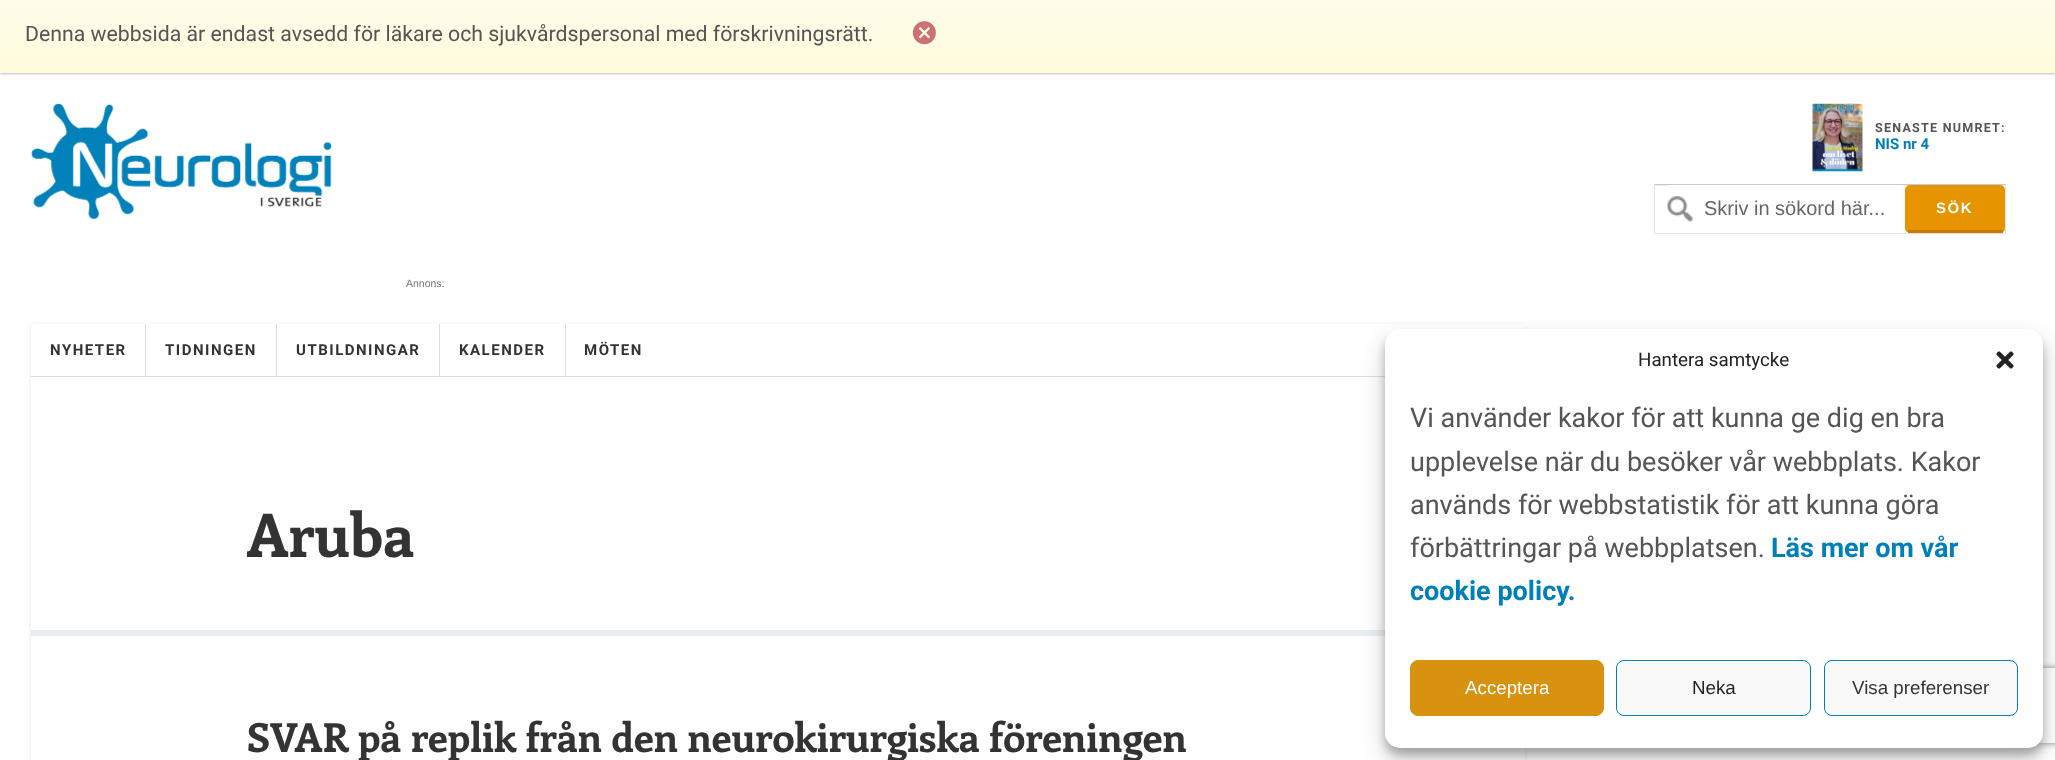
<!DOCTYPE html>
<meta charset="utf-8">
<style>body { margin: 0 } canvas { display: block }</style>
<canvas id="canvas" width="2055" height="760"></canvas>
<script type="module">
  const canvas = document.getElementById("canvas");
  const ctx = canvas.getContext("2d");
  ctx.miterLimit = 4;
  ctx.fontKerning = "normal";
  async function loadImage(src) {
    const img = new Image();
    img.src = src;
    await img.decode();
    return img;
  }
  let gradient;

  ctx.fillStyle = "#ffffff";
  ctx.fillRect(0, 0, 2055, 760);
  ctx.fillStyle = "rgba(0, 0, 0, 0.25)";
  ctx.filter = "blur(1px)";
  ctx.beginPath();
  ctx.rect(0, 1, 2055, 73);
  ctx.fill();
  ctx.filter = "none";
  gradient = ctx.createLinearGradient(1028, 0, 1028, 73);
  gradient.addColorStop(0, "#fffeeb");
  gradient.addColorStop(1, "#fffbdc");
  ctx.fillStyle = gradient;
  ctx.fillRect(0, 0, 2055, 73);
  ctx.font = "21.25px Roboto";
  ctx.fillStyle = "#555555";
  ctx.fillText("Denna webbsida är endast avsedd för läkare och sjukvårdspersonal med förskrivningsrätt.", 25, 41);
  ctx.drawImage(await loadImage("img1.png"), 912, 21, 24, 24);
  ctx.drawImage(await loadImage("img2.png"), 31, 103, 301, 116);
  ctx.drawImage(await loadImage("img3.png"), 1812, 103, 51, 69);
  ctx.letterSpacing = "1.25px";
  ctx.font = "bold 12.5px Roboto";
  ctx.fillText("SENASTE NUMRET:", 1875, 132);
  ctx.letterSpacing = "0px";
  ctx.font = "bold 15px Roboto";
  ctx.fillStyle = "#0080bb";
  ctx.fillText("NIS nr 4", 1875, 149);
  ctx.fillStyle = "#eeeeee";
  ctx.fillRect(1655, 185, 350, 1);
  ctx.fillStyle = "#c8c9c8";
  ctx.fillRect(1654, 184, 352, 1);
  ctx.fillStyle = "#e3e3e3";
  ctx.fillRect(2005, 184, 1, 50);
  ctx.fillRect(1654, 233, 352, 1);
  ctx.fillRect(1654, 184, 1, 50);
  ctx.fillStyle = "#ffffff";
  ctx.fillRect(1668, 185, 235, 1);
  ctx.drawImage(await loadImage("img4.png"), 1667, 196, 26, 26);
  ctx.font = "20px Liberation Sans";
  ctx.fillStyle = "#666666";
  ctx.fillText("Skriv in sökord här...", 1704, 215);
  ctx.fillStyle = "#e69400";
  ctx.beginPath();
  ctx.roundRect(1905, 185, 100, 48, 5);
  ctx.fill();
  ctx.fillStyle = "#cc7a00";
  ctx.fillRect(1908, 230, 95, 3);
  ctx.letterSpacing = "1.5px";
  ctx.font = "bold 15px Liberation Sans";
  ctx.fillStyle = "#ffffff";
  ctx.fillText("SÖK", 1936, 213);
  ctx.letterSpacing = "0px";
  ctx.font = "10.5px Liberation Sans";
  ctx.fillStyle = "#777777";
  ctx.fillText("Annons:", 406, 287);
  ctx.fillStyle = "rgba(0, 0, 0, 0.1)";
  ctx.filter = "blur(2px)";
  ctx.beginPath();
  ctx.roundRect(31, 325, 1494, 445, 4);
  ctx.fill();
  ctx.filter = "none";
  ctx.fillStyle = "#ffffff";
  ctx.beginPath();
  ctx.roundRect(31, 324, 1494, 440, 4);
  ctx.fill();
  ctx.fillStyle = "#dddddd";
  ctx.fillRect(31, 376, 1354, 1);
  ctx.letterSpacing = "1.5px";
  ctx.font = "bold 15px Roboto";
  ctx.fillStyle = "#333333";
  ctx.fillText("NYHETER", 50, 355);
  ctx.fillStyle = "#dddddd";
  ctx.fillRect(145, 324, 1, 52);
  ctx.fillStyle = "#333333";
  ctx.fillText("TIDNINGEN", 165, 355);
  ctx.fillStyle = "#dddddd";
  ctx.fillRect(276, 324, 1, 52);
  ctx.fillStyle = "#333333";
  ctx.fillText("UTBILDNINGAR", 296, 355);
  ctx.fillStyle = "#dddddd";
  ctx.fillRect(439, 324, 1, 52);
  ctx.fillStyle = "#333333";
  ctx.fillText("KALENDER", 459, 355);
  ctx.fillStyle = "#dddddd";
  ctx.fillRect(565, 324, 1, 52);
  ctx.fillStyle = "#333333";
  ctx.fillText("MÖTEN", 584, 355);
  ctx.letterSpacing = "0px";
  ctx.font = "bold 60px Enriqueta";
  ctx.fillText("Aruba", 247, 557);
  ctx.fillStyle = "#e8eeef";
  ctx.fillRect(31, 630, 1354, 6);
  ctx.font = "bold 40px Enriqueta";
  ctx.fillStyle = "#333333";
  ctx.fillText("SVAR på replik från den neurokirurgiska föreningen", 247, 752);
  ctx.fillStyle = "rgba(0, 0, 0, 0.23)";
  ctx.filter = "blur(4px)";
  ctx.beginPath();
  ctx.roundRect(1385, 336, 658, 419, 15);
  ctx.fill();
  ctx.filter = "none";
  ctx.fillStyle = "rgba(0, 0, 0, 0.19)";
  ctx.filter = "blur(12.5px)";
  ctx.beginPath();
  ctx.roundRect(1385, 341, 658, 419, 15);
  ctx.fill();
  ctx.filter = "none";
  ctx.save();
  ctx.beginPath();
  ctx.moveTo(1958, 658);
  ctx.lineTo(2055, 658);
  ctx.lineTo(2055, 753);
  ctx.lineTo(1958, 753);
  ctx.closePath();
  ctx.moveTo(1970.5, 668);
  ctx.lineTo(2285.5, 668);
  ctx.bezierCurveTo(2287, 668, 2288, 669, 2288, 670.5);
  ctx.lineTo(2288, 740.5);
  ctx.bezierCurveTo(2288, 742, 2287, 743, 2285.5, 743);
  ctx.lineTo(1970.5, 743);
  ctx.bezierCurveTo(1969, 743, 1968, 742, 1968, 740.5);
  ctx.lineTo(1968, 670.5);
  ctx.bezierCurveTo(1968, 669, 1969, 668, 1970.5, 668);
  ctx.closePath();
  ctx.clip("evenodd");
  ctx.fillStyle = "#808080";
  ctx.filter = "blur(3px)";
  ctx.beginPath();
  ctx.roundRect(1968, 668, 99, 75, 2.5);
  ctx.fill();
  ctx.filter = "none";
  ctx.restore();
  ctx.fillStyle = "#ffffff";
  ctx.beginPath();
  ctx.roundRect(1385, 329, 658, 419, 15);
  ctx.fill();
  ctx.font = "18.75px Roboto";
  ctx.fillStyle = "#222222";
  ctx.fillText("Hantera samtycke", 1638, 366);
  ctx.drawImage(await loadImage("img5.png"), 1996, 351, 18, 18);
  ctx.font = "27px Roboto";
  ctx.fillStyle = "#555555";
  ctx.fillText("Vi använder kakor för att kunna ge dig en bra", 1410, 427);
  ctx.fillText("upplevelse när du besöker vår webbplats. Kakor", 1410, 471);
  ctx.fillText("används för webbstatistik för att kunna göra", 1410, 514);
  ctx.fillText("förbättringar på webbplatsen.", 1410, 557);
  ctx.font = "bold 27px Roboto";
  ctx.fillStyle = "#0080bb";
  ctx.fillText("Läs mer om vår", 1771, 557);
  ctx.fillText("cookie policy.", 1410, 600);
  ctx.fillStyle = "#d99110";
  ctx.beginPath();
  ctx.roundRect(1410.5, 660.5, 193, 55, 7.5);
  ctx.fill();
  ctx.strokeStyle = "#d99110";
  ctx.stroke();
  ctx.font = "18.75px Liberation Sans";
  ctx.fillStyle = "#ffffff";
  ctx.fillText("Acceptera", 1465, 694);
  ctx.fillStyle = "#f9f9f9";
  ctx.beginPath();
  ctx.roundRect(1616.5, 660.5, 194, 55, 7.5);
  ctx.fill();
  ctx.strokeStyle = "#0081b9";
  ctx.stroke();
  ctx.fillStyle = "#222222";
  ctx.fillText("Neka", 1692, 694);
  ctx.fillStyle = "#f9f9f9";
  ctx.beginPath();
  ctx.roundRect(1824.5, 660.5, 193, 55, 7.5);
  ctx.fill();
  ctx.stroke();
  ctx.fillStyle = "#333333";
  ctx.fillText("Visa preferenser", 1852, 694);
</script>
